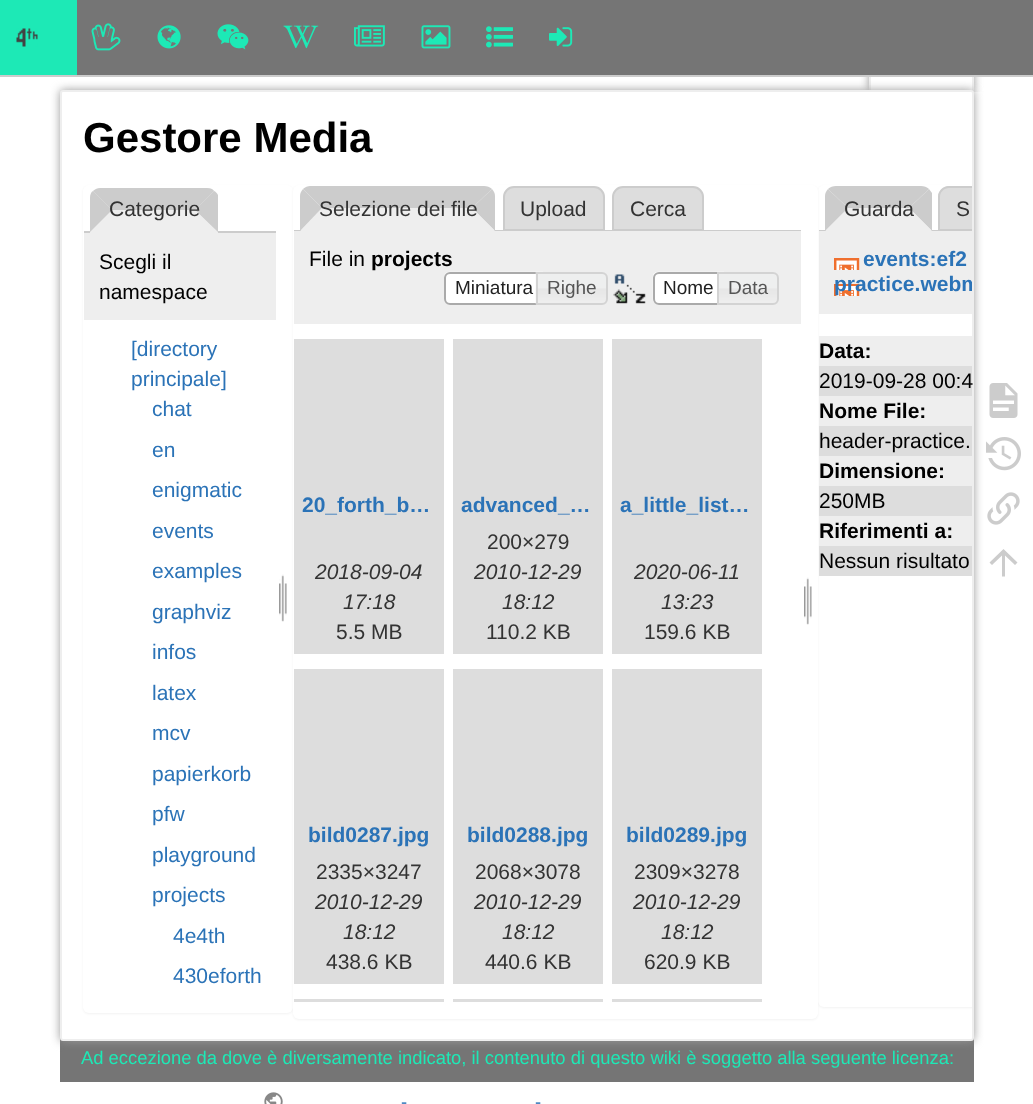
<!DOCTYPE html>
<meta charset="utf-8">
<style>body { margin: 0 } canvas { display: block }</style>
<canvas id="canvas" width="1033" height="1104"></canvas>
<script type="module">
  const canvas = document.getElementById("canvas");
  const ctx = canvas.getContext("2d");
  ctx.miterLimit = 4;
  ctx.fontKerning = "normal";
  async function loadImage(src) {
    const img = new Image();
    img.src = src;
    await img.decode();
    return img;
  }

  ctx.fillStyle = "#ffffff";
  ctx.fillRect(0, 0, 1033, 1104);
  ctx.save();
  ctx.beginPath();
  ctx.rect(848, 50, 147, 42);
  ctx.clip();
  ctx.fillStyle = "#999999";
  ctx.filter = "blur(4.5px)";
  ctx.beginPath();
  ctx.roundRect(869, 60, 105, 32, 3);
  ctx.fill();
  ctx.filter = "none";
  ctx.restore();
  ctx.fillRect(871, 77, 101, 14);
  ctx.fillStyle = "#eeeeee";
  ctx.fillRect(972, 77, 2, 15);
  ctx.fillRect(869, 77, 2, 15);
  ctx.fillStyle = "#757575";
  ctx.fillRect(60, 1038, 914, 44);
  ctx.fillStyle = "#999999";
  ctx.filter = "blur(5px)";
  ctx.beginPath();
  ctx.roundRect(60, 90, 914, 951, 3);
  ctx.fill();
  ctx.filter = "none";
  ctx.fillStyle = "#757575";
  ctx.fillRect(77, 0, 956, 75);
  ctx.fillStyle = "#cccccc";
  ctx.fillRect(0, 75, 1033, 2);
  ctx.fillStyle = "#1de9b6";
  ctx.fillRect(0, 0, 77, 75);
  ctx.drawImage(await loadImage("img1.png"), 16, 28, 22, 19);
  ctx.drawImage(await loadImage("img2.png"), 91, 23, 30, 28);
  ctx.drawImage(await loadImage("img3.png"), 157, 25, 24, 24);
  ctx.drawImage(await loadImage("img4.png"), 217, 24, 32, 26);
  ctx.drawImage(await loadImage("img5.png"), 283, 25, 36, 24);
  ctx.drawImage(await loadImage("img6.png"), 354, 25, 31, 22);
  ctx.drawImage(await loadImage("img7.png"), 421, 25, 30, 24);
  ctx.drawImage(await loadImage("img8.png"), 486, 26, 27, 22);
  ctx.drawImage(await loadImage("img9.png"), 549, 27, 24, 20);
  ctx.fillStyle = "#ffffff";
  ctx.beginPath();
  ctx.roundRect(61, 91, 912, 949, 2);
  ctx.fill();
  ctx.strokeStyle = "#eeeeee";
  ctx.lineWidth = 2;
  ctx.stroke();
  ctx.font = "bold 42px Liberation Sans";
  ctx.fillStyle = "#000000";
  ctx.fillText("Gestore Media", 83, 152);
  ctx.fillStyle = "rgba(0, 0, 0, 0.05)";
  ctx.filter = "blur(1px)";
  ctx.beginPath();
  ctx.roundRect(83, 186, 210, 828, 6);
  ctx.fill();
  ctx.filter = "none";
  ctx.fillStyle = "#ffffff";
  ctx.beginPath();
  ctx.roundRect(83, 185, 210, 828, 6);
  ctx.fill();
  ctx.fillStyle = "#cccccc";
  ctx.fillRect(84, 231, 192, 2);
  ctx.fillStyle = "#eeeeee";
  ctx.beginPath();
  ctx.roundRect(90, 188, 128, 45, [11, 11, 0, 0]);
  ctx.fill();
  ctx.fillStyle = "#cccccc";
  ctx.beginPath();
  ctx.moveTo(100, 188);
  ctx.bezierCurveTo(98, 188, 95, 189, 93, 191);
  ctx.lineTo(112, 210);
  ctx.lineTo(195, 210);
  ctx.lineTo(214, 191);
  ctx.bezierCurveTo(213, 189, 210, 188, 207, 188);
  ctx.closePath();
  ctx.fill();
  ctx.beginPath();
  ctx.moveTo(218, 232);
  ctx.lineTo(195, 210);
  ctx.lineTo(214, 191);
  ctx.bezierCurveTo(216, 192, 217, 193, 218, 195);
  ctx.closePath();
  ctx.fill();
  ctx.fillStyle = "#eeeeee";
  ctx.beginPath();
  ctx.moveTo(217, 232);
  ctx.lineTo(195, 210);
  ctx.lineTo(112, 210);
  ctx.lineTo(90, 232);
  ctx.closePath();
  ctx.fill();
  ctx.fillStyle = "#cccccc";
  ctx.beginPath();
  ctx.moveTo(90, 198);
  ctx.bezierCurveTo(90, 195, 91, 192, 93, 191);
  ctx.lineTo(112, 210);
  ctx.lineTo(90, 232);
  ctx.closePath();
  ctx.fill();
  ctx.font = "21px Liberation Sans";
  ctx.fillStyle = "#333333";
  ctx.fillText("Categorie", 109, 216);
  ctx.fillStyle = "#eeeeee";
  ctx.fillRect(84, 233, 192, 87);
  ctx.fillStyle = "#000000";
  ctx.fillText("Scegli il", 99, 269);
  ctx.fillText("namespace", 99, 299);
  ctx.fillStyle = "#2b73b7";
  ctx.fillText("[directory", 131, 356);
  ctx.fillText("principale]", 131, 386);
  ctx.fillText("chat", 152, 416);
  ctx.fillText("en", 152, 457);
  ctx.fillText("enigmatic", 152, 497);
  ctx.fillText("events", 152, 538);
  ctx.fillText("examples", 152, 578);
  ctx.fillText("graphviz", 152, 619);
  ctx.fillText("infos", 152, 659);
  ctx.fillText("latex", 152, 700);
  ctx.fillText("mcv", 152, 740);
  ctx.fillText("papierkorb", 152, 781);
  ctx.fillText("pfw", 152, 821);
  ctx.fillText("playground", 152, 862);
  ctx.fillText("projects", 152, 902);
  ctx.fillText("4e4th", 173, 943);
  ctx.fillText("430eforth", 173, 983);
  ctx.drawImage(await loadImage("img10.png"), 279, 574, 8, 48);
  ctx.save();
  ctx.beginPath();
  ctx.roundRect(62, 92, 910, 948, 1.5);
  ctx.clip();
  ctx.fillStyle = "rgba(0, 0, 0, 0.05)";
  ctx.filter = "blur(1px)";
  ctx.beginPath();
  ctx.roundRect(818, 186, 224, 822, 6);
  ctx.fill();
  ctx.filter = "none";
  ctx.restore();
  ctx.fillStyle = "#ffffff";
  ctx.beginPath();
  ctx.roundRect(818, 185, 154, 822, [6, 0, 0, 6]);
  ctx.fill();
  ctx.fillStyle = "#eeeeee";
  ctx.fillRect(819, 231, 153, 83);
  ctx.fillStyle = "rgba(0, 0, 0, 0.05)";
  ctx.filter = "blur(1px)";
  ctx.beginPath();
  ctx.roundRect(293, 186, 525, 834, 6);
  ctx.fill();
  ctx.filter = "none";
  ctx.fillStyle = "#ffffff";
  ctx.beginPath();
  ctx.roundRect(293, 185, 525, 834, 6);
  ctx.fill();
  ctx.fillStyle = "#cccccc";
  ctx.beginPath();
  ctx.moveTo(310, 186);
  ctx.lineTo(484, 186);
  ctx.bezierCurveTo(487, 186, 490, 187, 492, 189);
  ctx.lineTo(472, 208);
  ctx.lineTo(322, 208);
  ctx.lineTo(303, 189);
  ctx.bezierCurveTo(305, 187, 308, 186, 310, 186);
  ctx.closePath();
  ctx.fill();
  ctx.fillStyle = "#dddddd";
  ctx.beginPath();
  ctx.roundRect(504, 187, 100, 43, [10, 10, 0, 0]);
  ctx.fill();
  ctx.strokeStyle = "#cccccc";
  ctx.stroke();
  ctx.beginPath();
  ctx.roundRect(613, 187, 90, 43, [10, 10, 0, 0]);
  ctx.fill();
  ctx.stroke();
  ctx.fillStyle = "#cccccc";
  ctx.fillRect(294, 230, 507, 1);
  ctx.beginPath();
  ctx.moveTo(492, 189);
  ctx.lineTo(472, 208);
  ctx.lineTo(495, 231);
  ctx.lineTo(495, 196);
  ctx.bezierCurveTo(495, 194, 494, 191, 492, 189);
  ctx.closePath();
  ctx.fill();
  ctx.fillStyle = "#eeeeee";
  ctx.beginPath();
  ctx.moveTo(495, 231);
  ctx.lineTo(472, 208);
  ctx.lineTo(322, 208);
  ctx.lineTo(300, 231);
  ctx.closePath();
  ctx.fill();
  ctx.fillStyle = "#cccccc";
  ctx.beginPath();
  ctx.moveTo(300, 231);
  ctx.lineTo(300, 196);
  ctx.bezierCurveTo(300, 194, 301, 191, 303, 189);
  ctx.lineTo(322, 208);
  ctx.closePath();
  ctx.fill();
  ctx.fillStyle = "#333333";
  ctx.fillText("Selezione dei file", 319, 216);
  ctx.fillText("Upload", 520, 216);
  ctx.fillText("Cerca", 630, 216);
  ctx.fillStyle = "#eeeeee";
  ctx.fillRect(294, 231, 507, 93);
  ctx.fillStyle = "#000000";
  ctx.fillText("File in", 309, 266);
  ctx.font = "bold 21px Liberation Sans";
  ctx.fillText("projects", 371, 266);
  ctx.fillStyle = "#ffffff";
  ctx.beginPath();
  ctx.roundRect(444, 272, 99, 33, [6, 0, 0, 6]);
  ctx.fill();
  ctx.drawImage(await loadImage("img11.png"), 444, 271, 99, 5);
  ctx.beginPath();
  ctx.roundRect(445, 273, 97, 31, [5, 0, 0, 5]);
  ctx.strokeStyle = "#aaaaaa";
  ctx.stroke();
  ctx.font = "19px Liberation Sans";
  ctx.fillStyle = "#212121";
  ctx.fillText("Miniatura", 455, 294);
  ctx.drawImage(await loadImage("img12.png"), 535, 272, 72, 33);
  ctx.beginPath();
  ctx.roundRect(537, 273, 70, 31, [0, 5, 5, 0]);
  ctx.strokeStyle = "#d3d3d3";
  ctx.stroke();
  ctx.fillStyle = "#555555";
  ctx.fillText("Righe", 547, 294);
  ctx.drawImage(await loadImage("img13.png"), 613, 274, 33, 30);
  ctx.fillStyle = "#ffffff";
  ctx.beginPath();
  ctx.roundRect(653, 272, 72, 33, [6, 0, 0, 6]);
  ctx.fill();
  ctx.drawImage(await loadImage("img14.png"), 652, 271, 72, 31);
  ctx.beginPath();
  ctx.roundRect(654, 273, 70, 31, [5, 0, 0, 5]);
  ctx.strokeStyle = "#aaaaaa";
  ctx.stroke();
  ctx.fillStyle = "#212121";
  ctx.fillText("Nome", 663, 294);
  ctx.drawImage(await loadImage("img15.png"), 719, 272, 59, 32);
  ctx.beginPath();
  ctx.roundRect(718, 273, 60, 31, [0, 5, 5, 0]);
  ctx.strokeStyle = "#d3d3d3";
  ctx.stroke();
  ctx.fillStyle = "#555555";
  ctx.fillText("Data", 728, 294);
  ctx.fillStyle = "#dddddd";
  ctx.fillRect(294, 339, 150, 315);
  ctx.font = "bold 21px Liberation Sans";
  ctx.fillStyle = "#2b73b7";
  ctx.fillText("20_forth_b…", 302, 512);
  ctx.font = "italic 21px Liberation Sans";
  ctx.fillStyle = "#333333";
  ctx.fillText("2018-09-04", 315, 579);
  ctx.fillText("17:18", 343, 609);
  ctx.font = "21px Liberation Sans";
  ctx.fillText("5.5 MB", 336, 639);
  ctx.fillStyle = "#dddddd";
  ctx.fillRect(453, 339, 150, 315);
  ctx.font = "bold 21px Liberation Sans";
  ctx.fillStyle = "#2b73b7";
  ctx.fillText("advanced_…", 461, 512);
  ctx.font = "21px Liberation Sans";
  ctx.fillStyle = "#333333";
  ctx.fillText("200×279", 487, 549);
  ctx.font = "italic 21px Liberation Sans";
  ctx.fillText("2010-12-29", 474, 579);
  ctx.fillText("18:12", 502, 609);
  ctx.font = "21px Liberation Sans";
  ctx.fillText("110.2 KB", 486, 639);
  ctx.fillStyle = "#dddddd";
  ctx.fillRect(612, 339, 150, 315);
  ctx.font = "bold 21px Liberation Sans";
  ctx.fillStyle = "#2b73b7";
  ctx.fillText("a_little_list…", 620, 512);
  ctx.font = "italic 21px Liberation Sans";
  ctx.fillStyle = "#333333";
  ctx.fillText("2020-06-11", 634, 579);
  ctx.fillText("13:23", 661, 609);
  ctx.font = "21px Liberation Sans";
  ctx.fillText("159.6 KB", 644, 639);
  ctx.fillStyle = "#dddddd";
  ctx.fillRect(294, 669, 150, 315);
  ctx.font = "bold 21px Liberation Sans";
  ctx.fillStyle = "#2b73b7";
  ctx.fillText("bild0287.jpg", 308, 842);
  ctx.font = "21px Liberation Sans";
  ctx.fillStyle = "#333333";
  ctx.fillText("2335×3247", 316, 879);
  ctx.font = "italic 21px Liberation Sans";
  ctx.fillText("2010-12-29", 315, 909);
  ctx.fillText("18:12", 343, 939);
  ctx.font = "21px Liberation Sans";
  ctx.fillText("438.6 KB", 326, 969);
  ctx.fillStyle = "#dddddd";
  ctx.fillRect(453, 669, 150, 315);
  ctx.font = "bold 21px Liberation Sans";
  ctx.fillStyle = "#2b73b7";
  ctx.fillText("bild0288.jpg", 467, 842);
  ctx.font = "21px Liberation Sans";
  ctx.fillStyle = "#333333";
  ctx.fillText("2068×3078", 475, 879);
  ctx.font = "italic 21px Liberation Sans";
  ctx.fillText("2010-12-29", 474, 909);
  ctx.fillText("18:12", 502, 939);
  ctx.font = "21px Liberation Sans";
  ctx.fillText("440.6 KB", 485, 969);
  ctx.fillStyle = "#dddddd";
  ctx.fillRect(612, 669, 150, 315);
  ctx.font = "bold 21px Liberation Sans";
  ctx.fillStyle = "#2b73b7";
  ctx.fillText("bild0289.jpg", 626, 842);
  ctx.font = "21px Liberation Sans";
  ctx.fillStyle = "#333333";
  ctx.fillText("2309×3278", 634, 879);
  ctx.font = "italic 21px Liberation Sans";
  ctx.fillText("2010-12-29", 633, 909);
  ctx.fillText("18:12", 661, 939);
  ctx.font = "21px Liberation Sans";
  ctx.fillText("620.9 KB", 644, 969);
  ctx.fillStyle = "#dddddd";
  ctx.fillRect(294, 999, 150, 3);
  ctx.fillRect(453, 999, 150, 3);
  ctx.fillRect(612, 999, 150, 3);
  ctx.drawImage(await loadImage("img16.png"), 804, 577, 8, 48);
  ctx.fillStyle = "#cccccc";
  ctx.beginPath();
  ctx.moveTo(836, 186);
  ctx.lineTo(921, 186);
  ctx.bezierCurveTo(924, 186, 927, 187, 929, 189);
  ctx.lineTo(909, 208);
  ctx.lineTo(848, 208);
  ctx.lineTo(828, 189);
  ctx.bezierCurveTo(830, 187, 833, 186, 836, 186);
  ctx.closePath();
  ctx.fill();
  ctx.fillRect(819, 230, 119, 1);
  ctx.beginPath();
  ctx.moveTo(929, 189);
  ctx.lineTo(909, 208);
  ctx.lineTo(932, 231);
  ctx.lineTo(932, 193);
  ctx.closePath();
  ctx.fill();
  ctx.fillStyle = "#eeeeee";
  ctx.beginPath();
  ctx.moveTo(932, 231);
  ctx.lineTo(909, 208);
  ctx.lineTo(848, 208);
  ctx.lineTo(825, 231);
  ctx.closePath();
  ctx.fill();
  ctx.fillStyle = "#cccccc";
  ctx.beginPath();
  ctx.moveTo(825, 231);
  ctx.lineTo(825, 196);
  ctx.bezierCurveTo(825, 194, 826, 191, 828, 189);
  ctx.lineTo(848, 208);
  ctx.closePath();
  ctx.fill();
  ctx.fillStyle = "#333333";
  ctx.fillText("Guarda", 844, 216);
  ctx.fillStyle = "#dddddd";
  ctx.beginPath();
  ctx.roundRect(938, 186, 34, 45, [11, 0, 0, 0]);
  ctx.fill();
  ctx.fillStyle = "#cccccc";
  ctx.beginPath();
  ctx.moveTo(949, 186);
  ctx.bezierCurveTo(943, 186, 938, 191, 938, 197);
  ctx.lineTo(938, 231);
  ctx.lineTo(972, 231);
  ctx.lineTo(972, 229);
  ctx.lineTo(940, 229);
  ctx.lineTo(940, 197);
  ctx.bezierCurveTo(940, 192, 944, 188, 949, 188);
  ctx.lineTo(972, 188);
  ctx.lineTo(972, 186);
  ctx.closePath();
  ctx.fill();
  ctx.fillStyle = "#333333";
  ctx.fillText("S", 956, 216);
  ctx.drawImage(await loadImage("img17.png"), 834, 258, 26, 38);
  ctx.font = "bold 21px Liberation Sans";
  ctx.fillStyle = "#2b73b7";
  ctx.fillText("events:ef2", 863, 266);
  ctx.save();
  ctx.beginPath();
  ctx.roundRect(62, 92, 910, 948, 1.5);
  ctx.clip();
  ctx.fillText("practice.webm", 834, 291);
  ctx.restore();
  ctx.fillStyle = "#eeeeee";
  ctx.fillRect(819, 336, 153, 30);
  ctx.fillStyle = "#000000";
  ctx.fillText("Data:", 819, 358);
  ctx.fillStyle = "#dddddd";
  ctx.fillRect(819, 366, 153, 30);
  ctx.font = "21px Liberation Sans";
  ctx.fillStyle = "#000000";
  ctx.fillText("2019-09-28 00:4", 819, 388);
  ctx.fillStyle = "#eeeeee";
  ctx.fillRect(819, 396, 153, 30);
  ctx.font = "bold 21px Liberation Sans";
  ctx.fillStyle = "#000000";
  ctx.fillText("Nome File:", 819, 418);
  ctx.fillStyle = "#dddddd";
  ctx.fillRect(819, 426, 153, 30);
  ctx.font = "21px Liberation Sans";
  ctx.fillStyle = "#000000";
  ctx.fillText("header-practice.", 819, 448);
  ctx.fillStyle = "#eeeeee";
  ctx.fillRect(819, 456, 153, 30);
  ctx.font = "bold 21px Liberation Sans";
  ctx.fillStyle = "#000000";
  ctx.fillText("Dimensione:", 819, 478);
  ctx.fillStyle = "#dddddd";
  ctx.fillRect(819, 486, 153, 30);
  ctx.font = "21px Liberation Sans";
  ctx.fillStyle = "#000000";
  ctx.fillText("250MB", 819, 508);
  ctx.fillStyle = "#eeeeee";
  ctx.fillRect(819, 516, 153, 30);
  ctx.font = "bold 21px Liberation Sans";
  ctx.fillStyle = "#000000";
  ctx.fillText("Riferimenti a:", 819, 538);
  ctx.fillStyle = "#dddddd";
  ctx.fillRect(819, 546, 153, 30);
  ctx.font = "21px Liberation Sans";
  ctx.fillStyle = "#000000";
  ctx.fillText("Nessun risultato", 819, 568);
  ctx.drawImage(await loadImage("img18.png"), 989, 383, 29, 35);
  ctx.drawImage(await loadImage("img19.png"), 986, 437, 35, 34);
  ctx.drawImage(await loadImage("img20.png"), 987, 492, 33, 33);
  ctx.fillStyle = "#cccccc";
  ctx.beginPath();
  ctx.moveTo(1005, 576.5);
  ctx.lineTo(1002, 576.5);
  ctx.lineTo(1002, 555.5);
  ctx.lineTo(992, 565);
  ctx.lineTo(989.5, 562.5);
  ctx.lineTo(1003.5, 549);
  ctx.lineTo(1017.5, 562.5);
  ctx.lineTo(1015, 565);
  ctx.lineTo(1005, 555.5);
  ctx.closePath();
  ctx.fill();
  ctx.font = "18.4px Liberation Sans";
  ctx.fillStyle = "#1de9b6";
  ctx.fillText("Ad eccezione da dove è diversamente indicato, il contenuto di questo wiki è soggetto alla seguente licenza:", 81, 1064);
  ctx.drawImage(await loadImage("img21.png"), 264, 1092, 19, 12);
  ctx.fillStyle = "#2b73b7";
  ctx.fillText("-", 401, 1108);
  ctx.fillText("-", 535, 1108);
</script>
